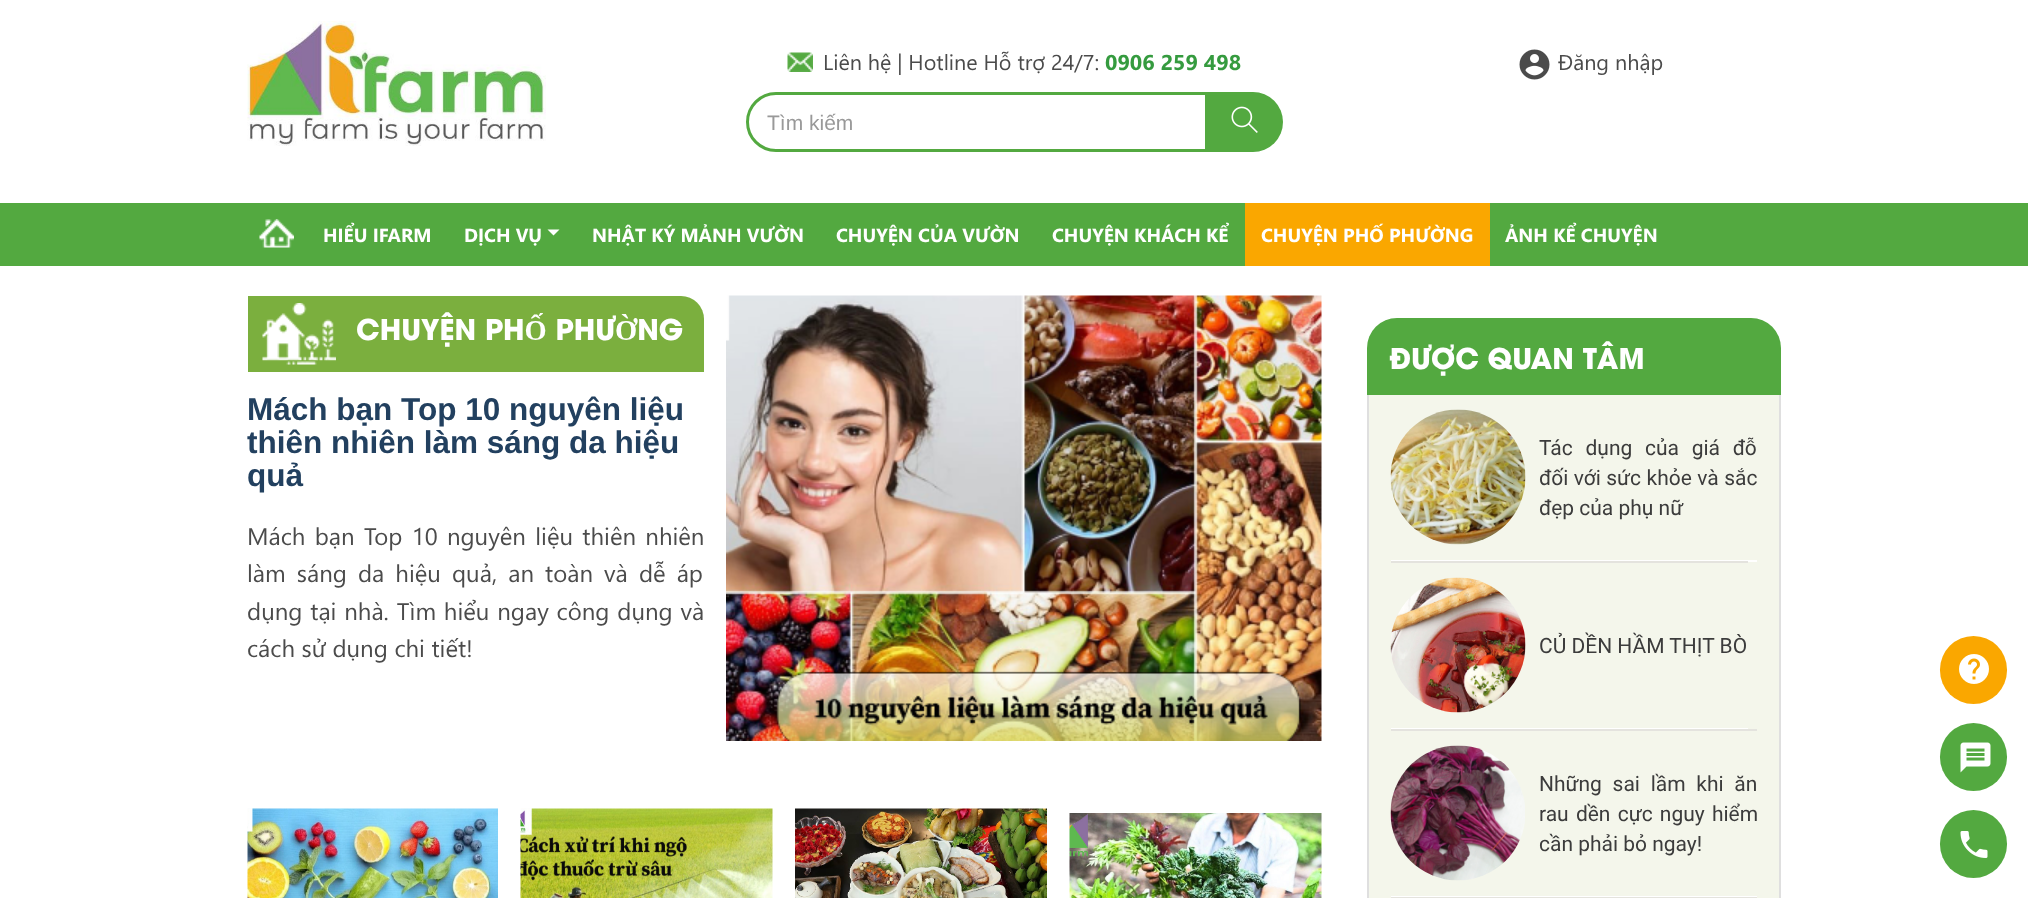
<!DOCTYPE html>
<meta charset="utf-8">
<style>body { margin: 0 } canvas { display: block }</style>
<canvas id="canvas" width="2028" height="898"></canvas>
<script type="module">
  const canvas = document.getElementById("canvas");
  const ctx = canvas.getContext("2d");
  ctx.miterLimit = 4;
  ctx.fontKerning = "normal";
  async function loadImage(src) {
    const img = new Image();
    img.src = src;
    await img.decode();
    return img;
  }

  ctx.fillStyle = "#ffffff";
  ctx.fillRect(0, 0, 2028, 898);
  ctx.drawImage(await loadImage("img1.png"), 247, 21, 299, 125);
  ctx.drawImage(await loadImage("img2.png"), 787, 52, 26, 20);
  ctx.font = "21.6px Segoe UI";
  ctx.fillStyle = "#4b4b4b";
  ctx.fillText("Liên hệ | Hotline Hỗ trợ 24/7:", 823, 70);
  ctx.font = "bold 21.6px Segoe UI";
  ctx.fillStyle = "#359b3f";
  ctx.fillText("0906 259 498", 1105, 70);
  ctx.beginPath();
  ctx.roundRect(747.5, 93.5, 459, 57, [28.5, 0, 0, 28.5]);
  ctx.strokeStyle = "#53a940";
  ctx.lineWidth = 3;
  ctx.stroke();
  ctx.font = "21px Liberation Sans";
  ctx.fillStyle = "#999999";
  ctx.fillText("Tìm kiếm", 767, 130);
  ctx.fillStyle = "#53a940";
  ctx.beginPath();
  ctx.roundRect(1208, 92, 75, 60, [0, 30, 30, 0]);
  ctx.fill();
  ctx.drawImage(await loadImage("img3.png"), 1231, 106, 27, 27);
  ctx.drawImage(await loadImage("img4.png"), 1519, 49, 31, 31);
  ctx.font = "21.6px Segoe UI";
  ctx.fillStyle = "#4b4b4b";
  ctx.fillText("Đăng nhập", 1558, 70);
  ctx.fillStyle = "#53a940";
  ctx.fillRect(0, 203, 2028, 63);
  ctx.drawImage(await loadImage("img5.png"), 259, 219, 35, 29);
  ctx.font = "bold 19px Segoe UI";
  ctx.fillStyle = "#ffffff";
  ctx.fillText("HIỂU IFARM", 323, 242);
  ctx.fillText("DỊCH VỤ", 464, 242);
  ctx.beginPath();
  ctx.moveTo(547.5, 229.5);
  ctx.lineTo(559.5, 229.5);
  ctx.lineTo(553.5, 235.5);
  ctx.closePath();
  ctx.fill();
  ctx.fillText("NHẬT KÝ MẢNH VƯỜN", 592, 242);
  ctx.fillText("CHUYỆN CỦA VƯỜN", 836, 242);
  ctx.fillText("CHUYỆN KHÁCH KỂ", 1052, 242);
  ctx.fillStyle = "#faa700";
  ctx.fillRect(1245, 203, 245, 63);
  ctx.fillStyle = "#ffffff";
  ctx.fillText("CHUYỆN PHỐ PHƯỜNG", 1261, 242);
  ctx.fillText("ẢNH KỂ CHUYỆN", 1505, 242);
  ctx.fillStyle = "#7baf3e";
  ctx.beginPath();
  ctx.roundRect(248, 296, 456, 76, [0, 23, 0, 0]);
  ctx.fill();
  ctx.drawImage(await loadImage("img6.png"), 262, 303, 74, 62);
  ctx.font = "bold 28.5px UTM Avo";
  ctx.fillStyle = "#ffffff";
  ctx.fillText("CHUYỆN PHỐ PHƯỜNG", 356, 340);
  ctx.drawImage(await loadImage("img7.png"), 726, 295, 596, 446);
  ctx.font = "bold 31.5px Liberation Sans";
  ctx.fillStyle = "#22405f";
  ctx.fillText("Mách bạn Top 10 nguyên liệu", 247, 420);
  ctx.fillText("thiên nhiên làm sáng da hiệu", 247, 453);
  ctx.fillText("quả", 247, 486);
  ctx.wordSpacing = "2.75px";
  ctx.font = "24px Segoe UI";
  ctx.fillStyle = "#4b4b4b";
  ctx.fillText("Mách bạn Top 10 nguyên liệu thiên nhiên", 247, 545);
  ctx.wordSpacing = "4.5px";
  ctx.fillText("làm sáng da hiệu quả, an toàn và dễ áp", 247, 582);
  ctx.wordSpacing = "1.25px";
  ctx.fillText("dụng tại nhà. Tìm hiểu ngay công dụng và", 247, 620);
  ctx.wordSpacing = "0px";
  ctx.fillText("cách sử dụng chi tiết!", 247, 657);
  ctx.drawImage(await loadImage("img8.png"), 247, 808, 251, 90);
  ctx.drawImage(await loadImage("img9.png"), 520, 808, 253, 90);
  ctx.drawImage(await loadImage("img10.png"), 795, 808, 252, 90);
  ctx.drawImage(await loadImage("img11.png"), 1069, 813, 253, 85);
  ctx.fillStyle = "#53a940";
  ctx.beginPath();
  ctx.roundRect(1367, 318, 414, 77, [30, 30, 0, 0]);
  ctx.fill();
  ctx.font = "bold 28.5px UTM Avo";
  ctx.fillStyle = "#ffffff";
  ctx.fillText("ĐƯỢC QUAN TÂM", 1389, 369);
  ctx.fillStyle = "#f4f6eb";
  ctx.fillRect(1369, 395, 410, 503);
  ctx.fillStyle = "#dfdfdf";
  ctx.fillRect(1779, 395, 2, 503);
  ctx.fillRect(1367, 395, 2, 503);
  ctx.fillStyle = "#ffffff";
  ctx.fillRect(1391, 560, 366, 2);
  ctx.drawImage(await loadImage("img12.png"), 1390, 409, 136, 136);
  ctx.wordSpacing = "7.5px";
  ctx.font = "21px Roboto";
  ctx.fillStyle = "#3c3c3c";
  ctx.fillText("Tác dụng của giá đỗ", 1539, 455);
  ctx.wordSpacing = "0.25px";
  ctx.fillText("đối với sức khỏe và sắc", 1539, 485);
  ctx.wordSpacing = "0px";
  ctx.fillText("đẹp của phụ nữ", 1539, 515);
  ctx.fillStyle = "#e4e3de";
  ctx.fillRect(1391, 561, 357, 2);
  ctx.fillStyle = "#ffffff";
  ctx.fillRect(1391, 728, 357, 1);
  ctx.drawImage(await loadImage("img13.png"), 1390, 577, 136, 136);
  ctx.fillStyle = "#3c3c3c";
  ctx.fillText("CỦ DỀN HẦM THỊT BÒ", 1539, 653);
  ctx.fillStyle = "#e4e3de";
  ctx.fillRect(1391, 729, 366, 2);
  ctx.fillStyle = "#ffffff";
  ctx.fillRect(1391, 896, 366, 1);
  ctx.drawImage(await loadImage("img14.png"), 1390, 745, 135, 136);
  ctx.wordSpacing = "5.5px";
  ctx.fillStyle = "#3c3c3c";
  ctx.fillText("Những sai lầm khi ăn", 1539, 791);
  ctx.wordSpacing = "2px";
  ctx.fillText("rau dền cực nguy hiểm", 1539, 821);
  ctx.wordSpacing = "0px";
  ctx.fillText("cần phải bỏ ngay!", 1539, 851);
  ctx.fillStyle = "#e4e3de";
  ctx.fillRect(1391, 897, 366, 1);
  ctx.fillStyle = "#faa700";
  ctx.beginPath();
  ctx.roundRect(1940, 636, 67, 68, 33.5);
  ctx.fill();
  ctx.drawImage(await loadImage("img15.png"), 1959, 654, 30, 30);
  ctx.fillStyle = "#53a940";
  ctx.beginPath();
  ctx.roundRect(1940, 723, 67, 68, 33.5);
  ctx.fill();
  ctx.drawImage(await loadImage("img16.png"), 1960, 742, 31, 31);
  ctx.beginPath();
  ctx.roundRect(1940, 810, 67, 68, 33.5);
  ctx.fill();
  ctx.drawImage(await loadImage("img17.png"), 1960, 831, 28, 27);
</script>
